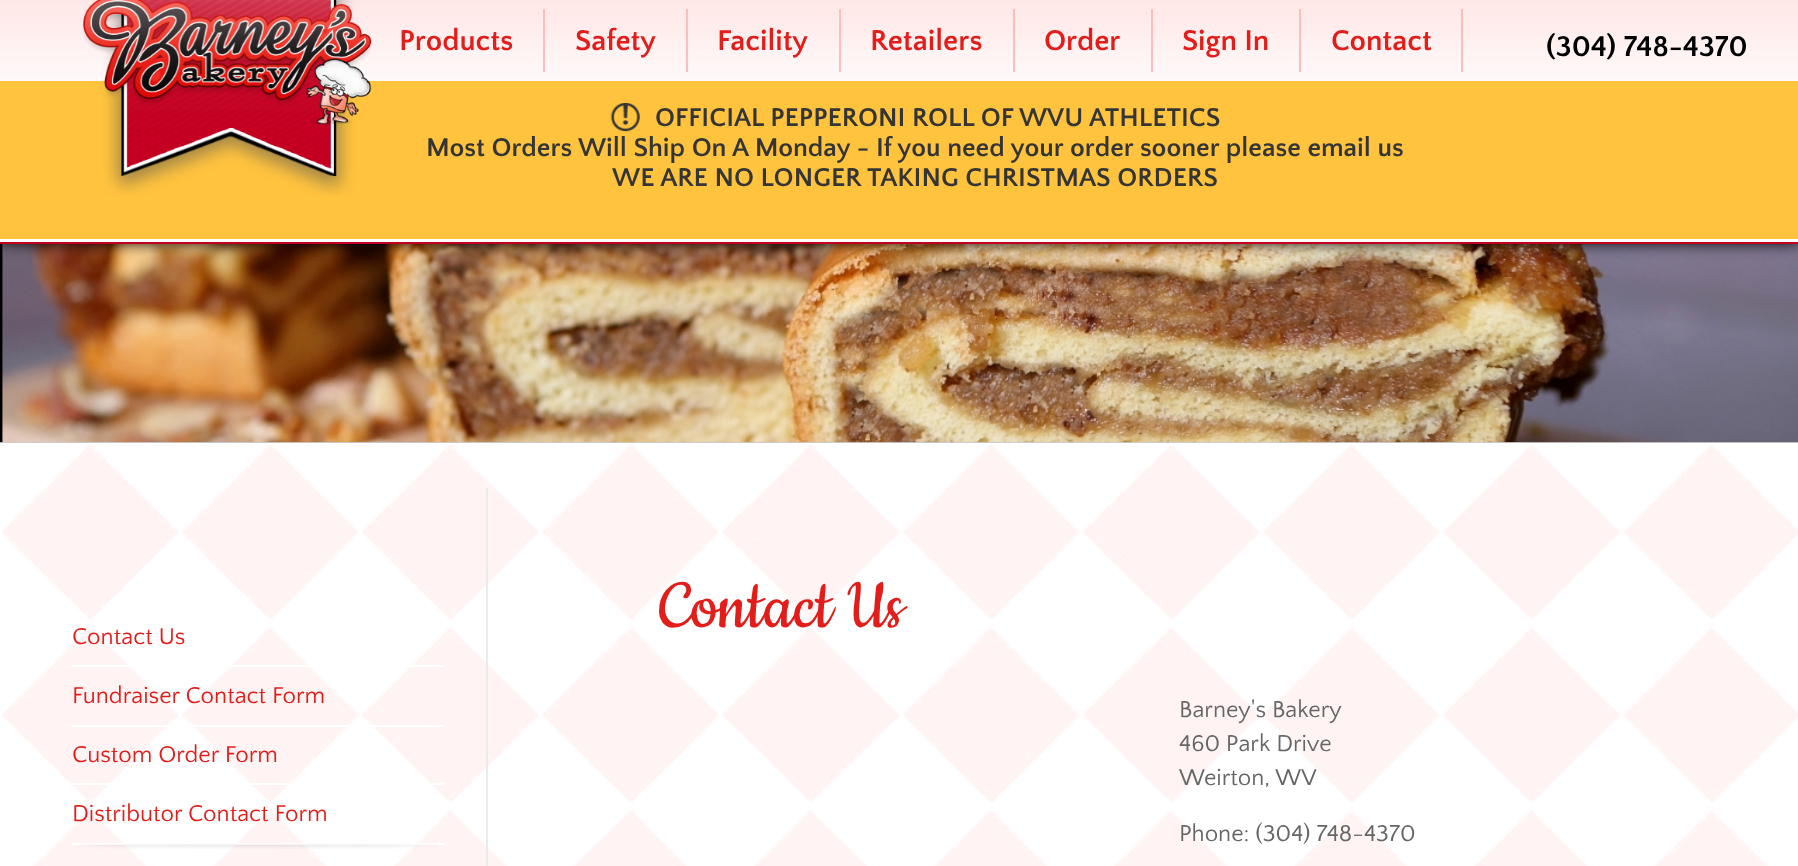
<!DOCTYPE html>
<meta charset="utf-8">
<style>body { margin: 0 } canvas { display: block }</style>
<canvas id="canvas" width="1798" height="866"></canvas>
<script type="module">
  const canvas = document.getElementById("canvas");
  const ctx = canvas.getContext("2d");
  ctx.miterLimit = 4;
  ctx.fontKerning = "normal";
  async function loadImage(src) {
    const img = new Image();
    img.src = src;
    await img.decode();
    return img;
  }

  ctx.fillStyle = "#ffffff";
  ctx.fillRect(0, 0, 1798, 866);
  ctx.fillStyle = "#cccccc";
  ctx.fillRect(0, 442, 1798, 1);
  ctx.drawImage(await loadImage("img4.png"), 0, 244, 1798, 199);
  ctx.fillStyle = "#000000";
  ctx.filter = "blur(7.5px)";
  ctx.beginPath();
  ctx.rect(0, 0, 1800, 243);
  ctx.fill();
  ctx.filter = "none";
  ctx.fillStyle = "#c2001f";
  ctx.fillRect(0, 242, 1798, 2);
  ctx.drawImage(await loadImage("img1.png"), 0, 0, 1798, 81);
  ctx.fillStyle = "#ffc33e";
  ctx.fillRect(0, 81, 1798, 158);
  ctx.drawImage(await loadImage("img2.png"), 83, 0, 289, 196);
  ctx.fillStyle = "#ffbebe";
  ctx.fillRect(543, 9, 2, 63);
  ctx.font = "bold 30px Quattrocento Sans";
  ctx.fillStyle = "#e31d1a";
  ctx.fillText("Products", 399, 50);
  ctx.fillStyle = "#ffbebe";
  ctx.fillRect(686, 9, 2, 63);
  ctx.fillStyle = "#e31d1a";
  ctx.fillText("Safety", 575, 50);
  ctx.fillStyle = "#ffbebe";
  ctx.fillRect(839, 9, 2, 63);
  ctx.fillStyle = "#e31d1a";
  ctx.fillText("Facility", 717, 50);
  ctx.fillStyle = "#ffbebe";
  ctx.fillRect(1013, 9, 2, 63);
  ctx.fillStyle = "#e31d1a";
  ctx.fillText("Retailers", 870, 50);
  ctx.fillStyle = "#ffbebe";
  ctx.fillRect(1151, 9, 2, 63);
  ctx.fillStyle = "#e31d1a";
  ctx.fillText("Order", 1044, 50);
  ctx.fillStyle = "#ffbebe";
  ctx.fillRect(1299, 9, 2, 63);
  ctx.fillStyle = "#e31d1a";
  ctx.fillText("Sign In", 1182, 50);
  ctx.fillStyle = "#ffbebe";
  ctx.fillRect(1461, 9, 2, 63);
  ctx.fillStyle = "#e31d1a";
  ctx.fillText("Contact", 1331, 50);
  ctx.fillStyle = "#000000";
  ctx.fillText("(304) 748-4370", 1546, 56);
  ctx.fillStyle = "#ffffff";
  ctx.fillRect(0, 239, 1798, 3);
  ctx.drawImage(await loadImage("img3.png"), 610, 102, 30, 30);
  ctx.font = "bold 27px Quattrocento Sans";
  ctx.fillStyle = "#353535";
  ctx.fillText("OFFICIAL PEPPERONI ROLL OF WVU ATHLETICS", 655, 126);
  ctx.fillText("Most Orders Will Ship On A Monday - If you need your order sooner please email us", 426, 156);
  ctx.fillText("WE ARE NO LONGER TAKING CHRISTMAS ORDERS", 612, 186);
  ctx.drawImage(await loadImage("img5.png"), 2, 444, 1796, 422);
  ctx.fillStyle = "#ebebeb";
  ctx.fillRect(486, 488, 2, 378);
  ctx.fillStyle = "#ffffff";
  ctx.fillRect(72, 665, 372, 2);
  ctx.font = "24px Quattrocento Sans";
  ctx.fillStyle = "#e31d1a";
  ctx.fillText("Contact Us", 72, 644);
  ctx.fillStyle = "#ffffff";
  ctx.fillRect(72, 725, 372, 2);
  ctx.fillStyle = "#e31d1a";
  ctx.fillText("Fundraiser Contact Form", 72, 703);
  ctx.fillStyle = "#ffffff";
  ctx.fillRect(72, 783, 372, 2);
  ctx.fillStyle = "#e31d1a";
  ctx.fillText("Custom Order Form", 72, 762);
  ctx.fillStyle = "#ffffff";
  ctx.fillRect(72, 843, 372, 2);
  ctx.fillStyle = "#e31d1a";
  ctx.fillText("Distributor Contact Form", 72, 821);
  ctx.drawImage(await loadImage("img6.png"), 77, 844, 361, 5);
  ctx.font = "78px Cookie";
  ctx.fillText("Contact Us", 659, 627);
  ctx.font = "24px Quattrocento Sans";
  ctx.fillStyle = "#666666";
  ctx.fillText("Barney's Bakery", 1179, 717);
  ctx.fillText("460 Park Drive", 1179, 751);
  ctx.fillText("Weirton, WV", 1179, 785);
  ctx.fillText("Phone: (304) 748-4370", 1179, 841);
</script>
